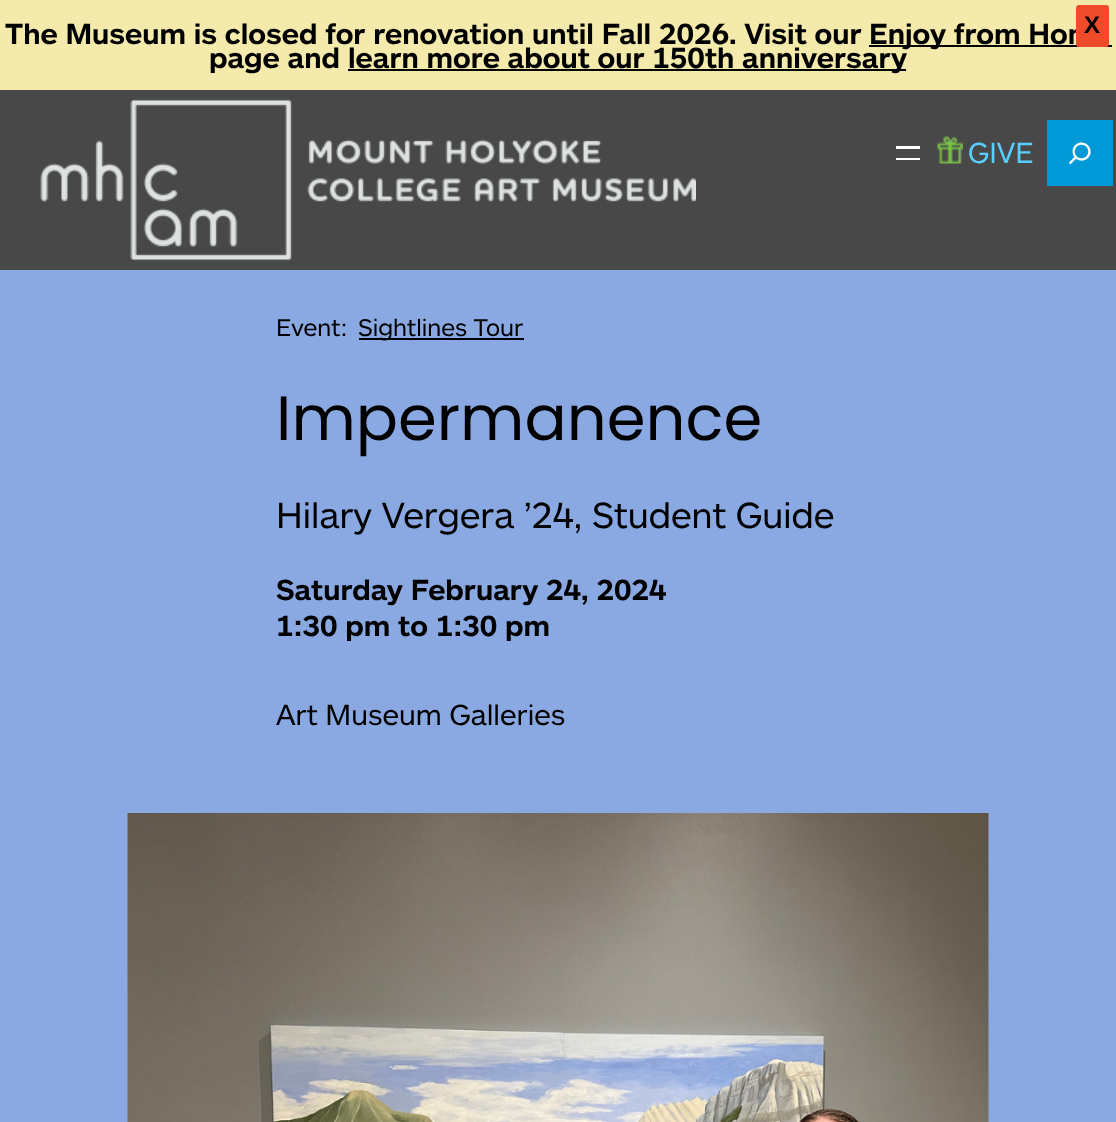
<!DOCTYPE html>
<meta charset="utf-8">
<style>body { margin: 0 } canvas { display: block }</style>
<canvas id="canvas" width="1116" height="1122"></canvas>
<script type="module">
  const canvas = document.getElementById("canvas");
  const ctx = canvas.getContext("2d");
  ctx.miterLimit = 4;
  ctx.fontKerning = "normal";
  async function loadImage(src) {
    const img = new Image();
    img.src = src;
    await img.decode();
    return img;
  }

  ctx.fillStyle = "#8aa9e2";
  ctx.fillRect(0, 0, 1116, 1122);
  ctx.fillStyle = "#f3eaac";
  ctx.fillRect(0, 0, 1116, 90);
  ctx.fillStyle = "#000000";
  ctx.fillRect(869, 45, 243, 2);
  ctx.font = "bold 28.8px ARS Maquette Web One";
  ctx.fillText("Enjoy from Hom", 869, 44);
  ctx.fillStyle = "#ee4b2b";
  ctx.beginPath();
  ctx.roundRect(1077, 6, 31, 40, 2);
  ctx.fill();
  ctx.strokeStyle = "#ee4b2b";
  ctx.lineWidth = 2;
  ctx.stroke();
  ctx.font = "bold 24px Liberation Sans";
  ctx.fillStyle = "#000000";
  ctx.fillText("X", 1084, 33);
  ctx.font = "bold 28.8px ARS Maquette Web One";
  ctx.fillText("The Museum is closed for renovation until Fall 2026. Visit our", 5, 44);
  ctx.fillText("page and", 209, 68);
  ctx.fillRect(348, 69, 558, 2);
  ctx.fillText("learn more about our 150th anniversary", 348, 68);
  ctx.fillStyle = "#484848";
  ctx.fillRect(0, 90, 1116, 180);
  ctx.drawImage(await loadImage("img1.png"), 40, 99, 656, 162);
  ctx.fillStyle = "#ffffff";
  ctx.fillRect(896, 146, 24, 3);
  ctx.fillRect(896, 158, 24, 2);
  ctx.drawImage(await loadImage("img2.png"), 937, 136, 26, 28);
  ctx.font = "28.8px ARS Maquette Web One";
  ctx.fillStyle = "#58ceff";
  ctx.fillText("GIVE", 968, 163);
  ctx.fillStyle = "#0099d8";
  ctx.fillRect(1047, 120, 66, 66);
  ctx.drawImage(await loadImage("img3.png"), 1068, 142, 23, 23);
  ctx.font = "24px ARS Maquette Web One";
  ctx.fillStyle = "#000000";
  ctx.fillText("Event:", 276, 336);
  ctx.fillRect(359, 338, 165, 2);
  ctx.fillText("Sightlines Tour", 358, 336);
  ctx.font = "62.5px Poppins";
  ctx.fillText("Impermanence", 276, 440);
  ctx.font = "36px ARS Maquette Web One";
  ctx.fillText("Hilary Vergera ’24, Student Guide", 276, 528);
  ctx.font = "bold 28.8px ARS Maquette Web One";
  ctx.fillText("Saturday February 24, 2024", 276, 600);
  ctx.fillText("1:30 pm to 1:30 pm", 276, 636);
  ctx.font = "28.8px ARS Maquette Web One";
  ctx.fillText("Art Museum Galleries", 276, 725);
  ctx.drawImage(await loadImage("img4.png"), 127, 813, 862, 309);
</script>
